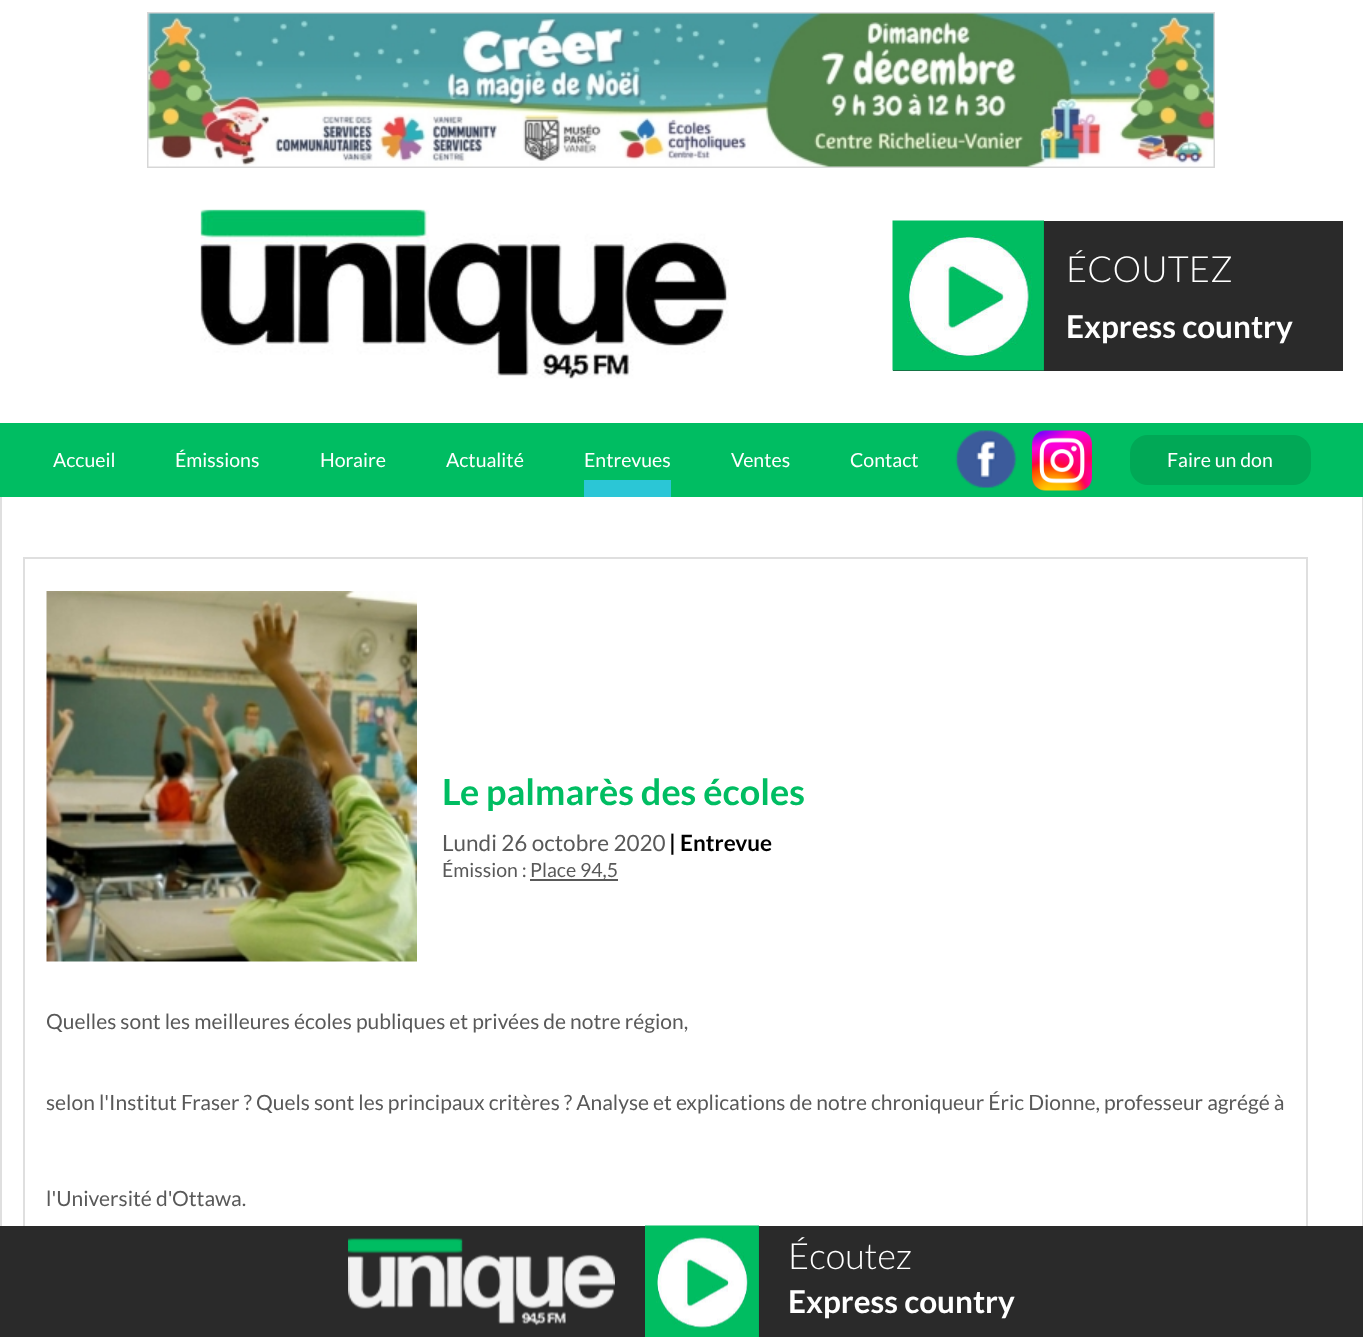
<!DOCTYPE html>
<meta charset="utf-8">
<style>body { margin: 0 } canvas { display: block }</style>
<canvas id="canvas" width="1363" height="1337"></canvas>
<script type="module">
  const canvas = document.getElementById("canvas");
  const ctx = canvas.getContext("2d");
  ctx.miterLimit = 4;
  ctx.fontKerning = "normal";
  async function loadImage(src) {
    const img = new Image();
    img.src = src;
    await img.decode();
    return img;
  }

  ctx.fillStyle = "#ffffff";
  ctx.fillRect(0, 0, 1363, 1337);
  ctx.strokeStyle = "#d7d7d7";
  ctx.lineWidth = 2;
  ctx.strokeRect(148, 13, 1066, 154);
  ctx.drawImage(await loadImage("img1.png"), 148, 13, 1066, 154);
  ctx.drawImage(await loadImage("img2.png"), 200, 209, 529, 170);
  ctx.fillStyle = "#2a2a2a";
  ctx.fillRect(893, 221, 450, 150);
  ctx.drawImage(await loadImage("img3.png"), 892, 220, 152, 151);
  ctx.font = "300 36px Lato";
  ctx.fillStyle = "#ffffff";
  ctx.fillText("ÉCOUTEZ", 1066, 282);
  ctx.font = "bold 31.5px Lato";
  ctx.fillText("Express country", 1066, 338);
  ctx.fillStyle = "#00bd62";
  ctx.fillRect(0, 423, 1363, 74);
  ctx.font = "19.5px Lato";
  ctx.fillStyle = "#ffffff";
  ctx.fillText("Accueil", 53, 467);
  ctx.fillText("Émissions", 175, 467);
  ctx.fillText("Horaire", 320, 467);
  ctx.fillText("Actualité", 446, 467);
  ctx.fillStyle = "#2bc6d6";
  ctx.fillRect(584, 480, 87, 17);
  ctx.fillStyle = "#ffffff";
  ctx.fillText("Entrevues", 584, 467);
  ctx.fillText("Ventes", 731, 467);
  ctx.fillText("Contact", 850, 467);
  ctx.drawImage(await loadImage("img4.png"), 955, 430, 62, 58);
  ctx.drawImage(await loadImage("img5.png"), 1032, 430, 60, 61);
  ctx.fillStyle = "#01a856";
  ctx.beginPath();
  ctx.roundRect(1130, 435, 181, 50, 18);
  ctx.fill();
  ctx.fillStyle = "#ffffff";
  ctx.fillText("Faire un don", 1167, 467);
  ctx.fillStyle = "#dfdfdf";
  ctx.fillRect(1362, 497, 1, 729);
  ctx.fillRect(0, 497, 2, 729);
  ctx.strokeStyle = "#dfdfdf";
  ctx.strokeRect(24, 558, 1283, 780);
  ctx.drawImage(await loadImage("img6.png"), 46, 591, 371, 371);
  ctx.font = "bold 36px Lato";
  ctx.fillStyle = "#00bd62";
  ctx.fillText("Le palmarès des écoles", 442, 805);
  ctx.font = "22.5px Lato";
  ctx.fillStyle = "#595959";
  ctx.fillText("Lundi 26 octobre 2020", 442, 851);
  ctx.font = "bold 22.5px Lato";
  ctx.fillStyle = "#000000";
  ctx.fillText("| Entrevue", 669, 851);
  ctx.font = "19.5px Lato";
  ctx.fillStyle = "#595959";
  ctx.fillText("Émission :", 442, 877);
  ctx.fillRect(530, 879, 88, 2);
  ctx.fillText("Place 94,5", 530, 877);
  ctx.font = "21px Lato";
  ctx.fillText("Quelles sont les meilleures écoles publiques et privées de notre région,", 46, 1029);
  ctx.fillText("selon l'Institut Fraser ? Quels sont les principaux critères ? Analyse et explications de notre chroniqueur Éric Dionne, professeur agrégé à", 46, 1110);
  ctx.fillText("l'Université d'Ottawa.", 46, 1206);
  ctx.fillStyle = "#2a2a2a";
  ctx.fillRect(0, 1226, 1363, 111);
  ctx.drawImage(await loadImage("img7.png"), 348, 1238, 267, 88);
  ctx.drawImage(await loadImage("img8.png"), 645, 1225, 114, 112);
  ctx.font = "300 36px Lato";
  ctx.fillStyle = "#ffffff";
  ctx.fillText("Écoutez", 788, 1269);
  ctx.font = "bold 31.5px Lato";
  ctx.fillText("Express country", 788, 1313);
</script>
